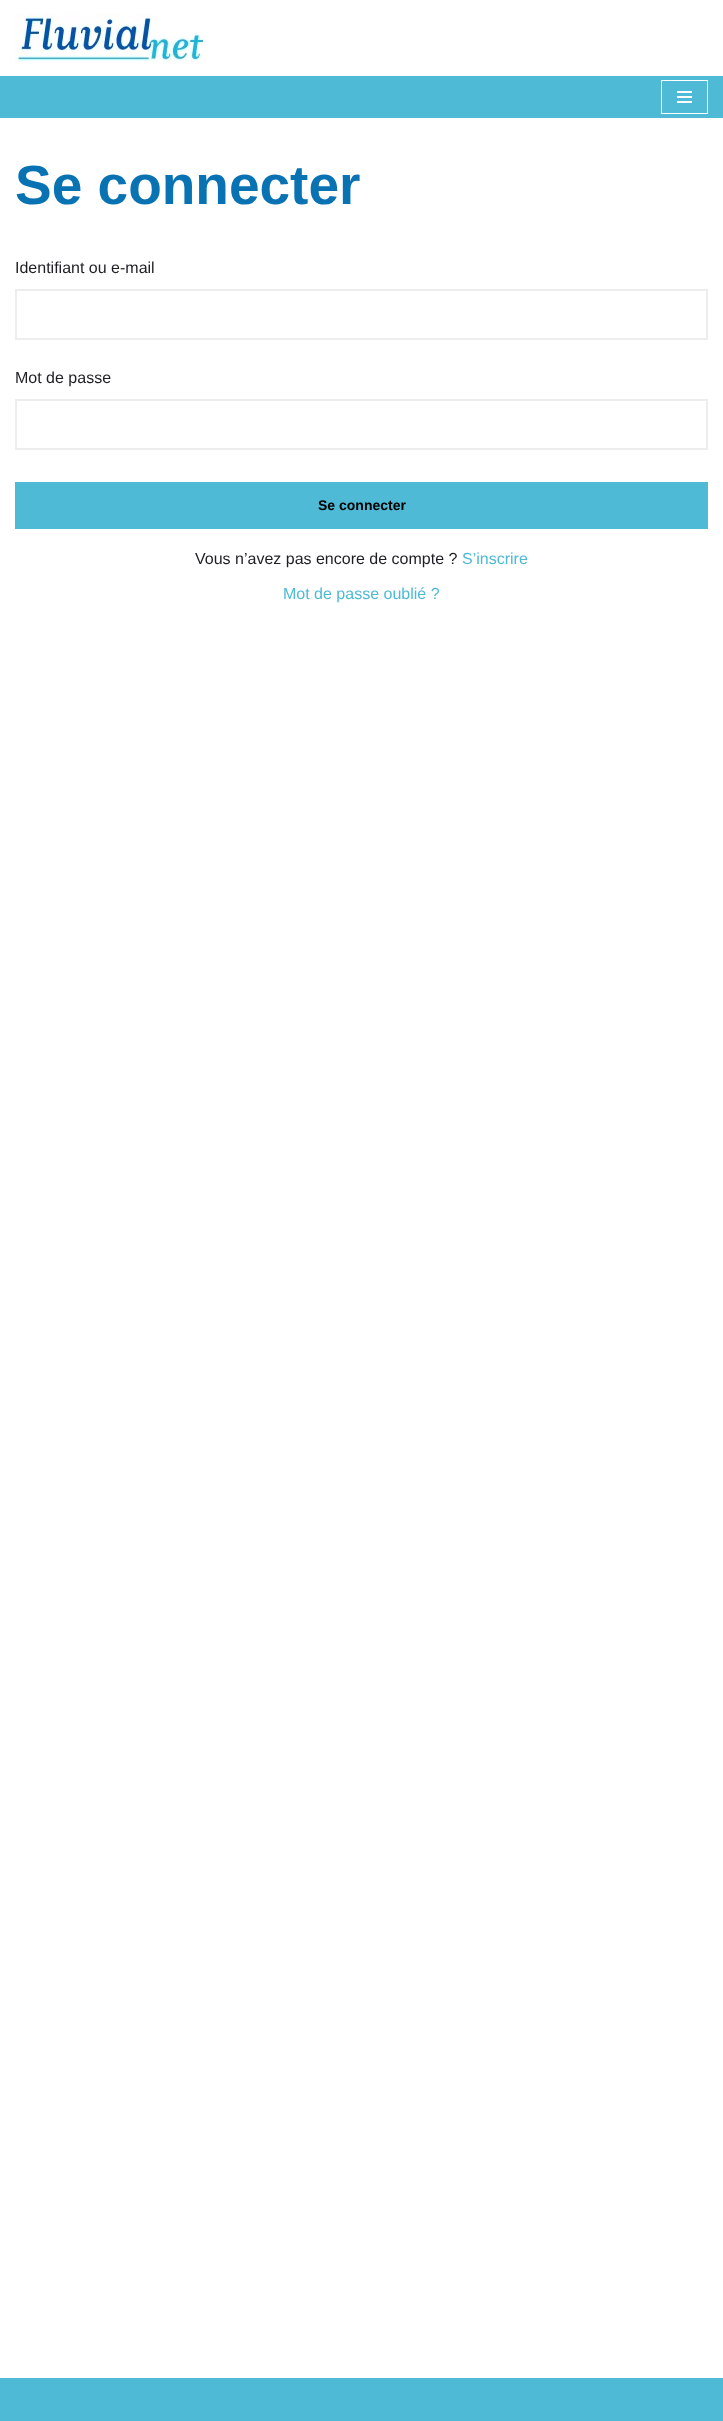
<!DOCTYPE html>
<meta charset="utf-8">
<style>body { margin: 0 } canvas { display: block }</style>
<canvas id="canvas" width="723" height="2421"></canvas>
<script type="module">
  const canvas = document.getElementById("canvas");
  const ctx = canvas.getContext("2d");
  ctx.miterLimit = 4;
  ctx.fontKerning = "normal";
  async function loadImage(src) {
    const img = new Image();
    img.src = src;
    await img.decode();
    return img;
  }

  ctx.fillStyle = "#ffffff";
  ctx.fillRect(0, 0, 723, 2421);
  ctx.drawImage(await loadImage("img1.png"), 15, 14, 192, 48);
  ctx.fillStyle = "#4ebad6";
  ctx.fillRect(0, 76, 723, 42);
  ctx.strokeStyle = "#ffffff";
  ctx.strokeRect(661.5, 80.5, 46, 33);
  ctx.fillStyle = "#ffffff";
  ctx.fillRect(677, 91, 15, 2);
  ctx.fillRect(677, 96, 15, 2);
  ctx.fillRect(677, 101, 15, 2);
  ctx.font = "bold 55px Liberation Sans";
  ctx.fillStyle = "#0872b3";
  ctx.fillText("Se connecter", 15, 204);
  ctx.font = "16px Liberation Sans";
  ctx.fillStyle = "#1e1e24";
  ctx.fillText("Identifiant ou e-mail", 15, 273);
  ctx.strokeStyle = "#ededed";
  ctx.lineWidth = 2;
  ctx.strokeRect(16, 290, 691, 49);
  ctx.fillText("Mot de passe", 15, 383);
  ctx.strokeRect(16, 400, 691, 49);
  ctx.fillStyle = "#4ebad6";
  ctx.fillRect(15, 482, 693, 47);
  ctx.font = "bold 14px Liberation Sans";
  ctx.fillStyle = "#010101";
  ctx.fillText("Se connecter", 318, 510);
  ctx.font = "16px Liberation Sans";
  ctx.fillStyle = "#1e1e24";
  ctx.fillText("Vous n’avez pas encore de compte ?", 195, 564);
  ctx.fillStyle = "#4ebad6";
  ctx.fillText("S’inscrire", 462, 564);
  ctx.fillText("Mot de passe oublié ?", 283, 599);
  ctx.fillRect(0, 2378, 723, 43);
</script>
